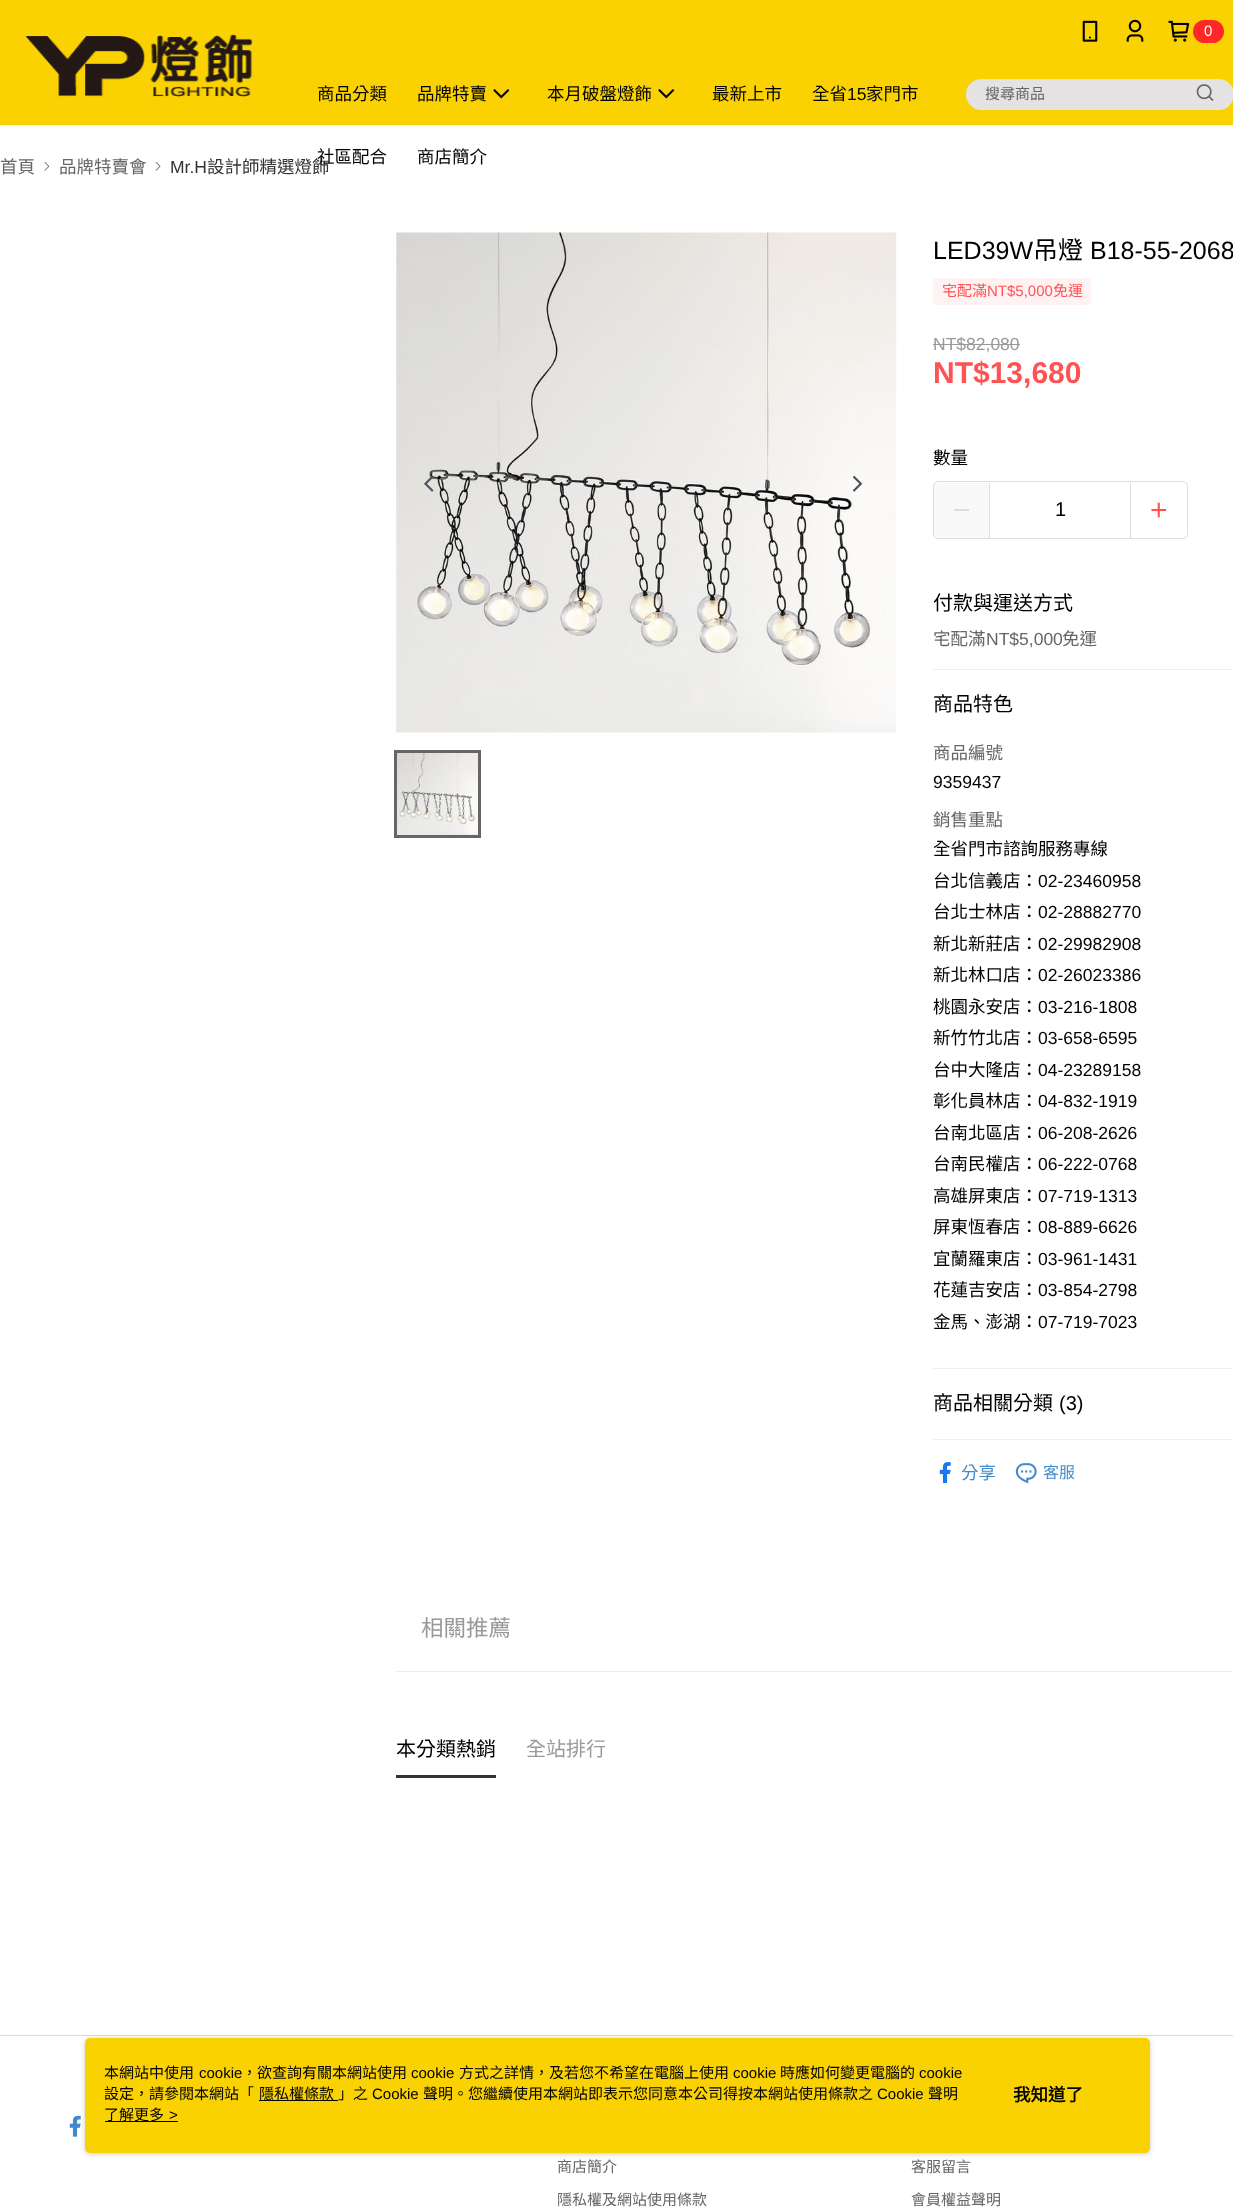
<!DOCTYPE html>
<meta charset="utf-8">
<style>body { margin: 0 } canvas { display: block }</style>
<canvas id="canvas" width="1233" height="2210"></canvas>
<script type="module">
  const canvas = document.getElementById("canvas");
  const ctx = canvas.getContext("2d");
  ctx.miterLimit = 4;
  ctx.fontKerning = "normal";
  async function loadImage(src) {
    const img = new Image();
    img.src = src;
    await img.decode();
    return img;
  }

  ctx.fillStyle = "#ffffff";
  ctx.fillRect(0, 0, 1233, 2210);
  ctx.fillStyle = "#fad202";
  ctx.fillRect(0, 0, 1233, 125);
  ctx.drawImage(await loadImage("img1.png"), 25, 34, 228, 63);
  ctx.drawImage(await loadImage("img2.png"), 1082, 20, 16, 22);
  ctx.drawImage(await loadImage("img3.png"), 1126, 19, 18, 23);
  ctx.drawImage(await loadImage("img4.png"), 1168, 20, 22, 22);
  ctx.fillStyle = "#ff2828";
  ctx.beginPath();
  ctx.roundRect(1193, 20, 31, 23, 11.5);
  ctx.fill();
  ctx.font = "15px Liberation Sans";
  ctx.fillStyle = "#ffffff";
  ctx.fillText("0", 1204, 36);
  ctx.font = "17.5px Noto Sans CJK TC";
  ctx.fillStyle = "#000000";
  ctx.fillText("商品分類", 317, 100);
  ctx.fillText("品牌特賣", 417, 100);
  ctx.drawImage(await loadImage("img5.png"), 493, 89, 17, 10);
  ctx.fillText("本月破盤燈飾", 547, 100);
  ctx.drawImage(await loadImage("img5.png"), 658, 89, 17, 10);
  ctx.fillText("最新上市", 712, 100);
  ctx.fillText("全省", 812, 100);
  ctx.font = "17.5px Liberation Sans";
  ctx.fillText("15", 847, 100);
  ctx.font = "17.5px Noto Sans CJK TC";
  ctx.fillText("家門市", 866, 100);
  ctx.fillStyle = "#333333";
  ctx.fillText("設計師精選燈飾", 207, 173);
  ctx.fillStyle = "#000000";
  ctx.fillText("社區配合", 317, 163);
  ctx.fillText("商店簡介", 417, 163);
  ctx.fillStyle = "#e4e2e2";
  ctx.beginPath();
  ctx.roundRect(966, 79, 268, 31, 15.5);
  ctx.fill();
  ctx.font = "15px Noto Sans CJK TC";
  ctx.fillStyle = "#666666";
  ctx.fillText("搜尋商品", 985, 99);
  ctx.drawImage(await loadImage("img6.png"), 1196, 84, 18, 17);
  ctx.font = "17.5px Noto Sans CJK TC";
  ctx.fillText("首頁", 0, 173);
  ctx.drawImage(await loadImage("img7.png"), 44, 162, 6, 9);
  ctx.fillText("品牌特賣會", 59, 173);
  ctx.drawImage(await loadImage("img8.png"), 155, 162, 6, 9);
  ctx.font = "17.5px Liberation Sans";
  ctx.fillStyle = "#333333";
  ctx.fillText("Mr.H", 170, 173);
  ctx.drawImage(await loadImage("img9.png"), 396, 232, 501, 501);
  ctx.drawImage(await loadImage("img10.png"), 424, 475, 10, 17);
  ctx.drawImage(await loadImage("img11.png"), 852, 475, 11, 17);
  ctx.drawImage(await loadImage("img12.png"), 397, 753, 81, 82);
  ctx.strokeStyle = "#666666";
  ctx.lineWidth = 3;
  ctx.strokeRect(395.5, 751.5, 84, 85);
  ctx.font = "25px Liberation Sans";
  ctx.fillStyle = "#000000";
  ctx.fillText("LED39W", 933, 259);
  ctx.font = "25px Noto Sans CJK TC";
  ctx.fillText("吊燈", 1033, 259);
  ctx.font = "25px Liberation Sans";
  ctx.fillText("B18-55-2068", 1090, 259);
  ctx.fillStyle = "#fff2f2";
  ctx.beginPath();
  ctx.roundRect(933, 278, 158, 27, 2.5);
  ctx.fill();
  ctx.font = "15px Noto Sans CJK TC";
  ctx.fillStyle = "#ff5353";
  ctx.fillText("宅配滿", 942, 296);
  ctx.font = "15px Liberation Sans";
  ctx.fillText("NT$5,000", 987, 296);
  ctx.font = "15px Noto Sans CJK TC";
  ctx.fillText("免運", 1053, 296);
  ctx.font = "17.5px Liberation Sans";
  ctx.fillStyle = "#999999";
  ctx.fillText("NT$82,080", 933, 350);
  ctx.fillRect(933, 344, 87, 1);
  ctx.font = "bold 30px Liberation Sans";
  ctx.fillStyle = "#ff5353";
  ctx.fillText("NT$13,680", 933, 383);
  ctx.font = "17.5px Noto Sans CJK TC";
  ctx.fillStyle = "#000000";
  ctx.fillText("數量", 933, 464);
  ctx.beginPath();
  ctx.roundRect(933.5, 481.5, 254, 57, 4.5);
  ctx.strokeStyle = "#dddddd";
  ctx.lineWidth = 1;
  ctx.stroke();
  ctx.fillStyle = "rgba(241, 241, 241, 0.4)";
  ctx.fillRect(934, 483, 55, 55);
  ctx.fillStyle = "#dddddd";
  ctx.fillRect(954, 509, 15, 2);
  ctx.fillRect(1130, 483, 1, 55);
  ctx.fillRect(989, 483, 1, 55);
  ctx.font = "20px Liberation Sans";
  ctx.fillStyle = "#000000";
  ctx.fillText("1", 1055, 516);
  ctx.drawImage(await loadImage("img13.png"), 1151, 502, 16, 16);
  ctx.fillStyle = "#eceff1";
  ctx.fillRect(933, 669, 300, 1);
  ctx.font = "20px Noto Sans CJK TC";
  ctx.fillStyle = "#000000";
  ctx.fillText("付款與運送方式", 933, 610);
  ctx.font = "17.5px Noto Sans CJK TC";
  ctx.fillStyle = "#666666";
  ctx.fillText("宅配滿", 933, 645);
  ctx.font = "17.5px Liberation Sans";
  ctx.fillText("NT$5,000", 986, 645);
  ctx.font = "17.5px Noto Sans CJK TC";
  ctx.fillText("免運", 1062, 645);
  ctx.fillStyle = "#eceff1";
  ctx.fillRect(933, 1368, 300, 1);
  ctx.font = "20px Noto Sans CJK TC";
  ctx.fillStyle = "#000000";
  ctx.fillText("商品特色", 933, 711);
  ctx.font = "17.5px Noto Sans CJK TC";
  ctx.fillStyle = "#666666";
  ctx.fillText("商品編號", 933, 759);
  ctx.font = "17.5px Liberation Sans";
  ctx.fillStyle = "#000000";
  ctx.fillText("9359437", 933, 788);
  ctx.font = "17.5px Noto Sans CJK TC";
  ctx.fillStyle = "#666666";
  ctx.fillText("銷售重點", 933, 826);
  ctx.fillStyle = "#000000";
  ctx.fillText("全省門市諮詢服務專線", 933, 855);
  ctx.fillText("台北信義店：", 933, 887);
  ctx.font = "17.5px Liberation Sans";
  ctx.fillText("02-23460958", 1038, 887);
  ctx.font = "17.5px Noto Sans CJK TC";
  ctx.fillText("台北士林店：", 933, 918);
  ctx.font = "17.5px Liberation Sans";
  ctx.fillText("02-28882770", 1038, 918);
  ctx.font = "17.5px Noto Sans CJK TC";
  ctx.fillText("新北新莊店：", 933, 950);
  ctx.font = "17.5px Liberation Sans";
  ctx.fillText("02-29982908", 1038, 950);
  ctx.font = "17.5px Noto Sans CJK TC";
  ctx.fillText("新北林口店：", 933, 981);
  ctx.font = "17.5px Liberation Sans";
  ctx.fillText("02-26023386", 1038, 981);
  ctx.font = "17.5px Noto Sans CJK TC";
  ctx.fillText("桃園永安店：", 933, 1013);
  ctx.font = "17.5px Liberation Sans";
  ctx.fillText("03-216-1808", 1038, 1013);
  ctx.font = "17.5px Noto Sans CJK TC";
  ctx.fillText("新竹竹北店：", 933, 1044);
  ctx.font = "17.5px Liberation Sans";
  ctx.fillText("03-658-6595", 1038, 1044);
  ctx.font = "17.5px Noto Sans CJK TC";
  ctx.fillText("台中大隆店：", 933, 1076);
  ctx.font = "17.5px Liberation Sans";
  ctx.fillText("04-23289158", 1038, 1076);
  ctx.font = "17.5px Noto Sans CJK TC";
  ctx.fillText("彰化員林店：", 933, 1107);
  ctx.font = "17.5px Liberation Sans";
  ctx.fillText("04-832-1919", 1038, 1107);
  ctx.font = "17.5px Noto Sans CJK TC";
  ctx.fillText("台南北區店：", 933, 1139);
  ctx.font = "17.5px Liberation Sans";
  ctx.fillText("06-208-2626", 1038, 1139);
  ctx.font = "17.5px Noto Sans CJK TC";
  ctx.fillText("台南民權店：", 933, 1170);
  ctx.font = "17.5px Liberation Sans";
  ctx.fillText("06-222-0768", 1038, 1170);
  ctx.font = "17.5px Noto Sans CJK TC";
  ctx.fillText("高雄屏東店：", 933, 1202);
  ctx.font = "17.5px Liberation Sans";
  ctx.fillText("07-719-1313", 1038, 1202);
  ctx.font = "17.5px Noto Sans CJK TC";
  ctx.fillText("屏東恆春店：", 933, 1233);
  ctx.font = "17.5px Liberation Sans";
  ctx.fillText("08-889-6626", 1038, 1233);
  ctx.font = "17.5px Noto Sans CJK TC";
  ctx.fillText("宜蘭羅東店：", 933, 1265);
  ctx.font = "17.5px Liberation Sans";
  ctx.fillText("03-961-1431", 1038, 1265);
  ctx.font = "17.5px Noto Sans CJK TC";
  ctx.fillText("花蓮吉安店：", 933, 1296);
  ctx.font = "17.5px Liberation Sans";
  ctx.fillText("03-854-2798", 1038, 1296);
  ctx.font = "17.5px Noto Sans CJK TC";
  ctx.fillText("金馬、澎湖：", 933, 1328);
  ctx.font = "17.5px Liberation Sans";
  ctx.fillText("07-719-7023", 1038, 1328);
  ctx.fillStyle = "#eceff1";
  ctx.fillRect(933, 1439, 300, 1);
  ctx.font = "20px Noto Sans CJK TC";
  ctx.fillStyle = "#000000";
  ctx.fillText("商品相關分類", 933, 1410);
  ctx.font = "20px Liberation Sans";
  ctx.fillText("(3)", 1059, 1410);
  ctx.drawImage(await loadImage("img14.png"), 939, 1462, 12, 21);
  ctx.font = "17.5px Noto Sans CJK TC";
  ctx.fillStyle = "#428bca";
  ctx.fillText("分享", 961, 1479);
  ctx.drawImage(await loadImage("img15.png"), 1015, 1463, 22, 21);
  ctx.font = "16px Noto Sans CJK TC";
  ctx.fillText("客服", 1043, 1478);
  ctx.fillStyle = "#ececec";
  ctx.fillRect(396, 1671, 837, 1);
  ctx.font = "22.5px Noto Sans CJK TC";
  ctx.fillStyle = "#999999";
  ctx.fillText("相關推薦", 421, 1636);
  ctx.fillStyle = "#333333";
  ctx.fillRect(396, 1775, 100, 3);
  ctx.font = "20px Noto Sans CJK TC";
  ctx.fillStyle = "#000000";
  ctx.fillText("本分類熱銷", 396, 1756);
  ctx.fillStyle = "#999999";
  ctx.fillText("全站排行", 526, 1756);
  ctx.fillStyle = "#dadada";
  ctx.fillRect(0, 2035, 1233, 1);
  ctx.drawImage(await loadImage("img16.png"), 69, 2115, 12, 22);
  ctx.font = "15px Noto Sans CJK TC";
  ctx.fillStyle = "#666666";
  ctx.fillText("商店簡介", 557, 2172);
  ctx.fillText("隱私權及網站使用條款", 557, 2205);
  ctx.fillText("客服留言", 911, 2172);
  ctx.fillText("會員權益聲明", 911, 2205);
  ctx.fillStyle = "rgba(151, 151, 151, 0.5)";
  ctx.filter = "blur(2.5px)";
  ctx.beginPath();
  ctx.roundRect(85, 2039, 1065, 115, 5);
  ctx.fill();
  ctx.filter = "none";
  ctx.fillStyle = "#fad202";
  ctx.beginPath();
  ctx.roundRect(85, 2038, 1065, 115, 5);
  ctx.fill();
  ctx.fillStyle = "#000000";
  ctx.fillText("本網站中使用", 104, 2078);
  ctx.font = "15px Liberation Sans";
  ctx.fillText("cookie", 199, 2078);
  ctx.font = "15px Noto Sans CJK TC";
  ctx.fillText("，欲查詢有關本網站使用", 242, 2078);
  ctx.font = "15px Liberation Sans";
  ctx.fillText("cookie", 411, 2078);
  ctx.font = "15px Noto Sans CJK TC";
  ctx.fillText("方式之詳情，及若您不希望在電腦上使用", 459, 2078);
  ctx.font = "15px Liberation Sans";
  ctx.fillText("cookie", 733, 2078);
  ctx.font = "15px Noto Sans CJK TC";
  ctx.fillText("時應如何變更電腦的", 780, 2078);
  ctx.font = "15px Liberation Sans";
  ctx.fillText("cookie", 919, 2078);
  ctx.font = "15px Noto Sans CJK TC";
  ctx.fillText("設定，請參閱本網站「", 104, 2099);
  ctx.fillRect(259, 2100, 79, 1);
  ctx.fillText("隱私權條款", 259, 2099);
  ctx.fillText("」之", 338, 2099);
  ctx.font = "15px Liberation Sans";
  ctx.fillText("Cookie", 372, 2099);
  ctx.font = "15px Noto Sans CJK TC";
  ctx.fillText("聲明。您繼續使用本網站即表示您同意本公司得按本網站使用條款之", 423, 2099);
  ctx.font = "15px Liberation Sans";
  ctx.fillText("Cookie", 877, 2099);
  ctx.font = "15px Noto Sans CJK TC";
  ctx.fillText("聲明", 928, 2099);
  ctx.fillRect(105, 2121, 73, 1);
  ctx.fillText("了解更多", 104, 2120);
  ctx.font = "15px Liberation Sans";
  ctx.fillText(">", 169, 2120);
  ctx.font = "bold 17.5px Noto Sans CJK TC";
  ctx.fillText("我知道了", 1013, 2101);
</script>
